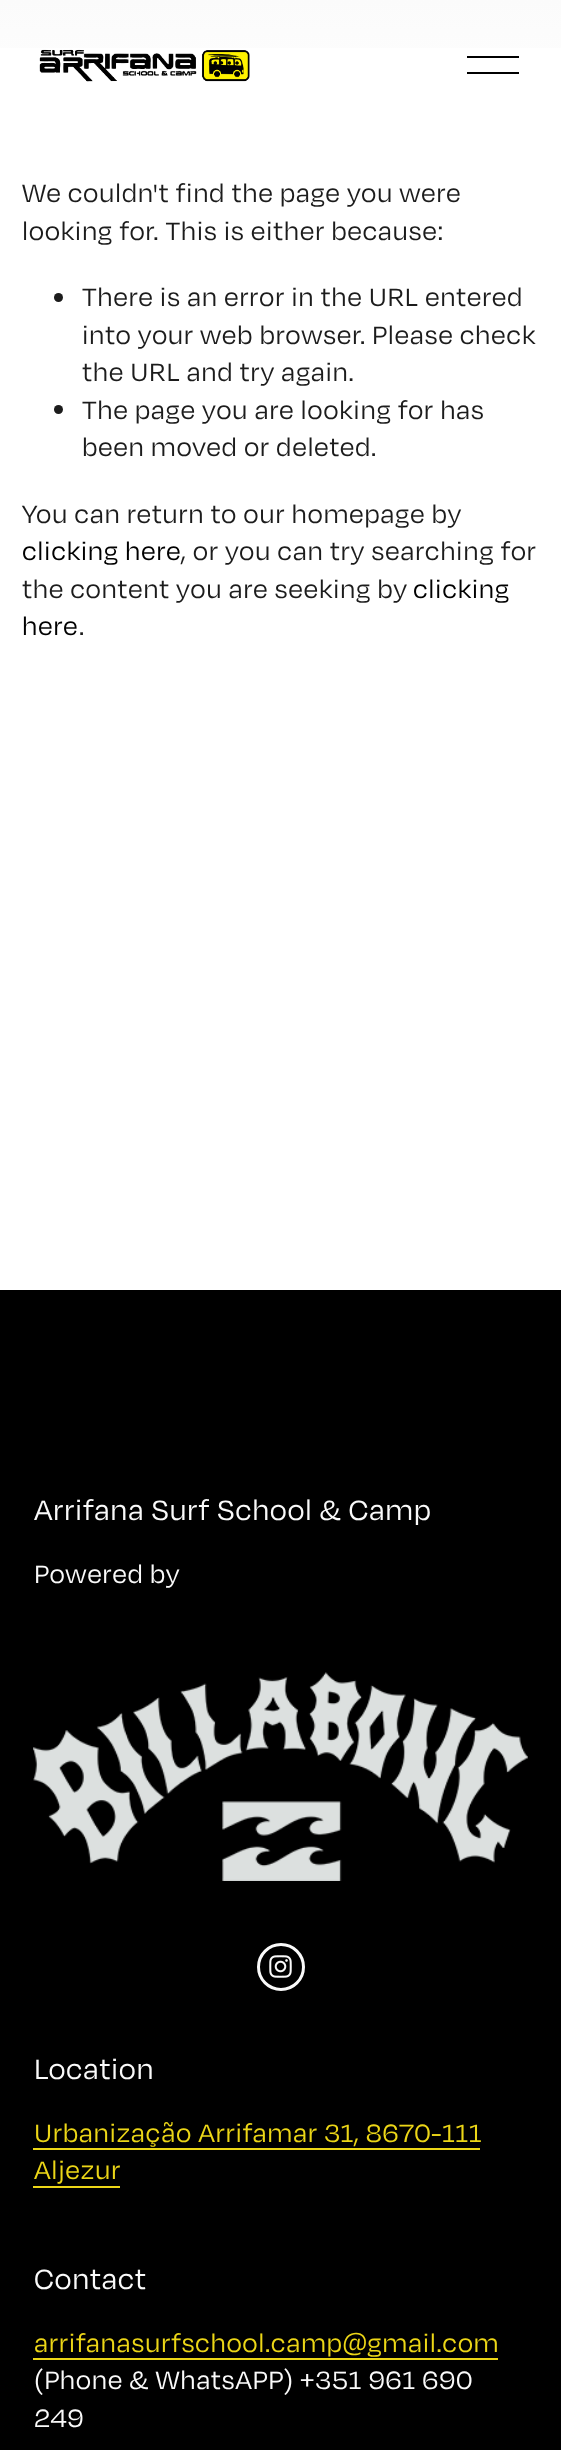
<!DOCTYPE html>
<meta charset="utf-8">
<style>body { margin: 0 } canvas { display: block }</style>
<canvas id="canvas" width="561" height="2450"></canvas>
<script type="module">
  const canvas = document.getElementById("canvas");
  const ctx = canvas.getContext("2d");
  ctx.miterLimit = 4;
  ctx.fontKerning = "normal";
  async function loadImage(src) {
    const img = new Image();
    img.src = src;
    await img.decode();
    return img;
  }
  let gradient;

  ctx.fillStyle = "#ffffff";
  ctx.fillRect(0, 0, 561, 2450);
  gradient = ctx.createLinearGradient(281, 0, 281, 128);
  gradient.addColorStop(0, "#fbfbfb");
  gradient.addColorStop(1, "#ffffff");
  ctx.fillStyle = gradient;
  ctx.fillRect(0, 0, 561, 48);
  ctx.drawImage(await loadImage("img1.png"), 39, 49, 211, 33);
  ctx.fillStyle = "#000000";
  ctx.fillRect(467, 56, 52, 2);
  ctx.fillRect(467, 72, 52, 2);
  ctx.letterSpacing = "0.6px";
  ctx.font = "28.9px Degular";
  ctx.fillStyle = "#1c1c1c";
  ctx.fillText("We couldn't find the page you were", 22, 202);
  ctx.fillText("looking for. This is either because:", 22, 240);
  ctx.beginPath();
  ctx.arc(58.5, 297.5, 4.5, 0, Math.PI * 2);
  ctx.fill();
  ctx.fillText("There is an error in the URL entered", 82, 306);
  ctx.fillText("into your web browser. Please check", 82, 344);
  ctx.fillText("the URL and try again.", 82, 381);
  ctx.beginPath();
  ctx.arc(58.5, 409.5, 4.5, 0, Math.PI * 2);
  ctx.fill();
  ctx.fillText("The page you are looking for has", 82, 419);
  ctx.fillText("been moved or deleted.", 82, 456);
  ctx.fillText("You can return to our homepage by", 22, 523);
  ctx.fillStyle = "#000000";
  ctx.fillText("clicking here", 22, 560);
  ctx.fillStyle = "#1c1c1c";
  ctx.fillText(", or you can try searching for", 181, 560);
  ctx.fillText("the content you are seeking by", 22, 598);
  ctx.fillStyle = "#000000";
  ctx.fillText("clicking", 413, 598);
  ctx.fillText("here", 22, 635);
  ctx.fillStyle = "#1c1c1c";
  ctx.fillText(".", 79, 635);
  ctx.fillStyle = "#000000";
  ctx.fillRect(0, 1290, 561, 1160);
  ctx.font = "32.1px Degular";
  ctx.fillStyle = "#fafafa";
  ctx.fillText("Arrifana Surf School & Camp", 34, 1520);
  ctx.font = "28.9px Degular";
  ctx.fillText("Powered by", 34, 1583);
  ctx.drawImage(await loadImage("img2.png"), 33, 1672, 495, 209);
  ctx.beginPath();
  ctx.arc(281, 1967, 22.5, 0, Math.PI * 2);
  ctx.strokeStyle = "#fafafa";
  ctx.lineWidth = 3;
  ctx.stroke();
  ctx.drawImage(await loadImage("img3.png"), 269, 1955, 23, 23);
  ctx.font = "32.1px Degular";
  ctx.fillText("Location", 34, 2079);
  ctx.font = "28.9px Degular";
  ctx.fillStyle = "#ecd617";
  ctx.fillText("Urbanização Arrifamar 31, 8670-111", 34, 2142);
  ctx.fillRect(33, 2148, 447, 2);
  ctx.fillText("Aljezur", 34, 2179);
  ctx.fillRect(33, 2186, 87, 2);
  ctx.font = "32.1px Degular";
  ctx.fillStyle = "#fafafa";
  ctx.fillText("Contact", 34, 2289);
  ctx.font = "28.9px Degular";
  ctx.fillStyle = "#ecd617";
  ctx.fillText("arrifanasurfschool.camp@gmail.com", 34, 2352);
  ctx.fillRect(33, 2358, 465, 2);
  ctx.fillStyle = "#fafafa";
  ctx.fillText("(Phone & WhatsAPP) +351 961 690", 34, 2389);
  ctx.fillText("249", 34, 2427);
</script>
